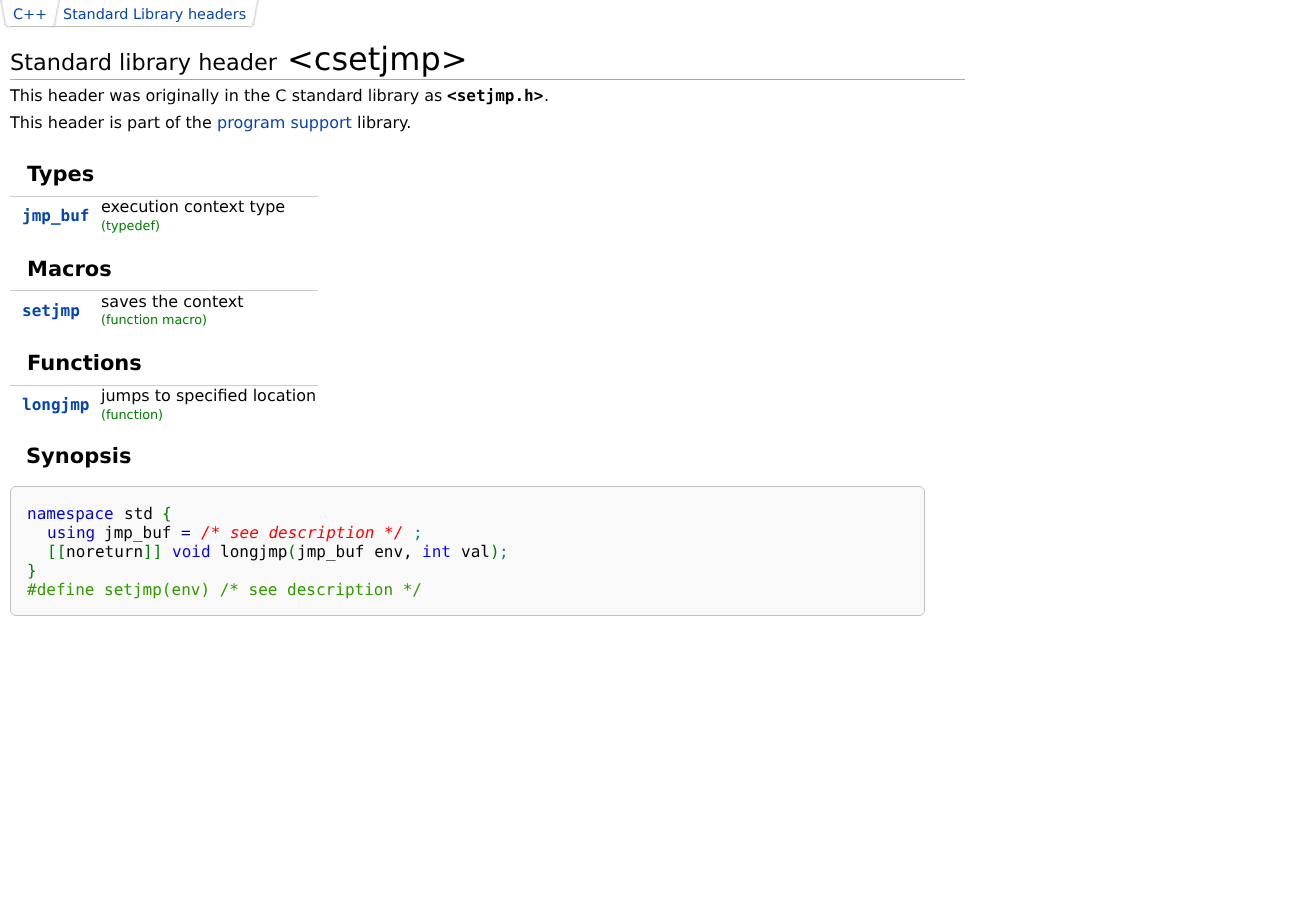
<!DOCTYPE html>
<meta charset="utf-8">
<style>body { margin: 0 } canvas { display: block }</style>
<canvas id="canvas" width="1312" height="903"></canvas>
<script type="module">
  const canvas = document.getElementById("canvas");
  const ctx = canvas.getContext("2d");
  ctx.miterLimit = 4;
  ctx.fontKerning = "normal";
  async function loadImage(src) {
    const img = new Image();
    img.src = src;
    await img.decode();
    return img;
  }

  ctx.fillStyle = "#ffffff";
  ctx.fillRect(0, 0, 1312, 903);
  ctx.drawImage(await loadImage("img1.png"), 0, 0, 10, 28);
  ctx.fillStyle = "#c0c0c0";
  ctx.fillRect(10, 26, 40, 1);
  ctx.font = "14.4px DejaVu Sans";
  ctx.fillStyle = "#0645ad";
  ctx.fillText("C++", 13, 19);
  ctx.drawImage(await loadImage("img2.png"), 50, 0, 10, 28);
  ctx.fillStyle = "#c0c0c0";
  ctx.fillRect(50, 26, 199, 1);
  ctx.drawImage(await loadImage("img3.png"), 249, 0, 10, 28);
  ctx.fillStyle = "#0645ad";
  ctx.fillText("Standard Library headers", 63, 19);
  ctx.font = "16px DejaVu Sans";
  ctx.fillStyle = "#000000";
  ctx.fillText("This header was originally in the C standard library as", 10, 101);
  ctx.font = "bold 16px DejaVu Sans Mono";
  ctx.fillText("<setjmp.h>", 447, 101);
  ctx.font = "16px DejaVu Sans";
  ctx.fillText(".", 544, 101);
  ctx.fillText("This header is part of the", 10, 128);
  ctx.fillStyle = "#0645ad";
  ctx.fillText("program support", 217, 128);
  ctx.fillStyle = "#000000";
  ctx.fillText("library.", 357, 128);
  ctx.font = "bold 21px DejaVu Sans";
  ctx.fillText("Types", 27, 181);
  ctx.fillStyle = "#cccccc";
  ctx.fillRect(10, 196, 308, 1);
  ctx.font = "bold 16px DejaVu Sans Mono";
  ctx.fillStyle = "#0645ad";
  ctx.fillText("jmp_buf", 22, 221);
  ctx.font = "16px DejaVu Sans";
  ctx.fillStyle = "#000000";
  ctx.fillText("execution context type", 101, 212);
  ctx.font = "12.75px DejaVu Sans";
  ctx.fillStyle = "#008000";
  ctx.fillText("(typedef)", 101, 230);
  ctx.font = "bold 21px DejaVu Sans";
  ctx.fillStyle = "#000000";
  ctx.fillText("Macros", 27, 276);
  ctx.fillStyle = "#cccccc";
  ctx.fillRect(10, 290, 308, 1);
  ctx.font = "bold 16px DejaVu Sans Mono";
  ctx.fillStyle = "#0645ad";
  ctx.fillText("setjmp", 22, 316);
  ctx.font = "16px DejaVu Sans";
  ctx.fillStyle = "#000000";
  ctx.fillText("saves the context", 101, 307);
  ctx.font = "12.75px DejaVu Sans";
  ctx.fillStyle = "#008000";
  ctx.fillText("(function macro)", 101, 324);
  ctx.font = "bold 21px DejaVu Sans";
  ctx.fillStyle = "#000000";
  ctx.fillText("Functions", 27, 370);
  ctx.fillStyle = "#cccccc";
  ctx.fillRect(10, 385, 308, 1);
  ctx.font = "bold 16px DejaVu Sans Mono";
  ctx.fillStyle = "#0645ad";
  ctx.fillText("longjmp", 22, 410);
  ctx.font = "16px DejaVu Sans";
  ctx.fillStyle = "#000000";
  ctx.fillText("jumps to specified location", 101, 401);
  ctx.font = "12.75px DejaVu Sans";
  ctx.fillStyle = "#008000";
  ctx.fillText("(function)", 101, 419);
  ctx.font = "bold 21px DejaVu Sans";
  ctx.fillStyle = "#000000";
  ctx.fillText("Synopsis", 26, 463);
  ctx.fillStyle = "#f9f9f9";
  ctx.beginPath();
  ctx.roundRect(10.5, 486.5, 914, 129, 5.5);
  ctx.fill();
  ctx.strokeStyle = "#c0c0c0";
  ctx.stroke();
  ctx.font = "16px DejaVu Sans Mono";
  ctx.fillStyle = "#0000dd";
  ctx.fillText("namespace", 27, 519);
  ctx.fillStyle = "#000000";
  ctx.fillText("std", 124, 519);
  ctx.fillStyle = "#008000";
  ctx.fillText("{", 162, 519);
  ctx.fillStyle = "#0000dd";
  ctx.fillText("using", 47, 538);
  ctx.fillStyle = "#000000";
  ctx.fillText("jmp_buf", 104, 538);
  ctx.fillStyle = "#000080";
  ctx.fillText("=", 181, 538);
  ctx.font = "italic 16px DejaVu Sans Mono";
  ctx.fillStyle = "#ff0000";
  ctx.fillText("/* see description */", 201, 538);
  ctx.font = "16px DejaVu Sans Mono";
  ctx.fillStyle = "#008080";
  ctx.fillText(";", 413, 538);
  ctx.fillStyle = "#008000";
  ctx.fillText("[[", 47, 557);
  ctx.fillText("]]", 143, 557);
  ctx.fillStyle = "#0000ff";
  ctx.fillText("void", 172, 557);
  ctx.fillStyle = "#000000";
  ctx.fillText("longjmp jmp_buf env,", 220, 557);
  ctx.fillText("noreturn", 66, 557);
  ctx.fillStyle = "#008000";
  ctx.fillText("(", 287, 557);
  ctx.fillStyle = "#0000ff";
  ctx.fillText("int", 422, 557);
  ctx.fillStyle = "#000000";
  ctx.fillText("val", 461, 557);
  ctx.fillStyle = "#008000";
  ctx.fillText(")", 490, 557);
  ctx.fillStyle = "#008080";
  ctx.fillText(";", 499, 557);
  ctx.fillStyle = "#008000";
  ctx.fillText("}", 27, 576);
  ctx.fillStyle = "#339900";
  ctx.fillText("#define setjmp(env) /* see description */", 27, 595);
  ctx.fillStyle = "#aaaaaa";
  ctx.fillRect(10, 79, 955, 1);
  ctx.font = "22.4px DejaVu Sans";
  ctx.fillStyle = "#000000";
  ctx.fillText("Standard library header", 10, 70);
  ctx.font = "32px DejaVu Sans";
  ctx.fillText("<csetjmp>", 287, 70);
</script>
